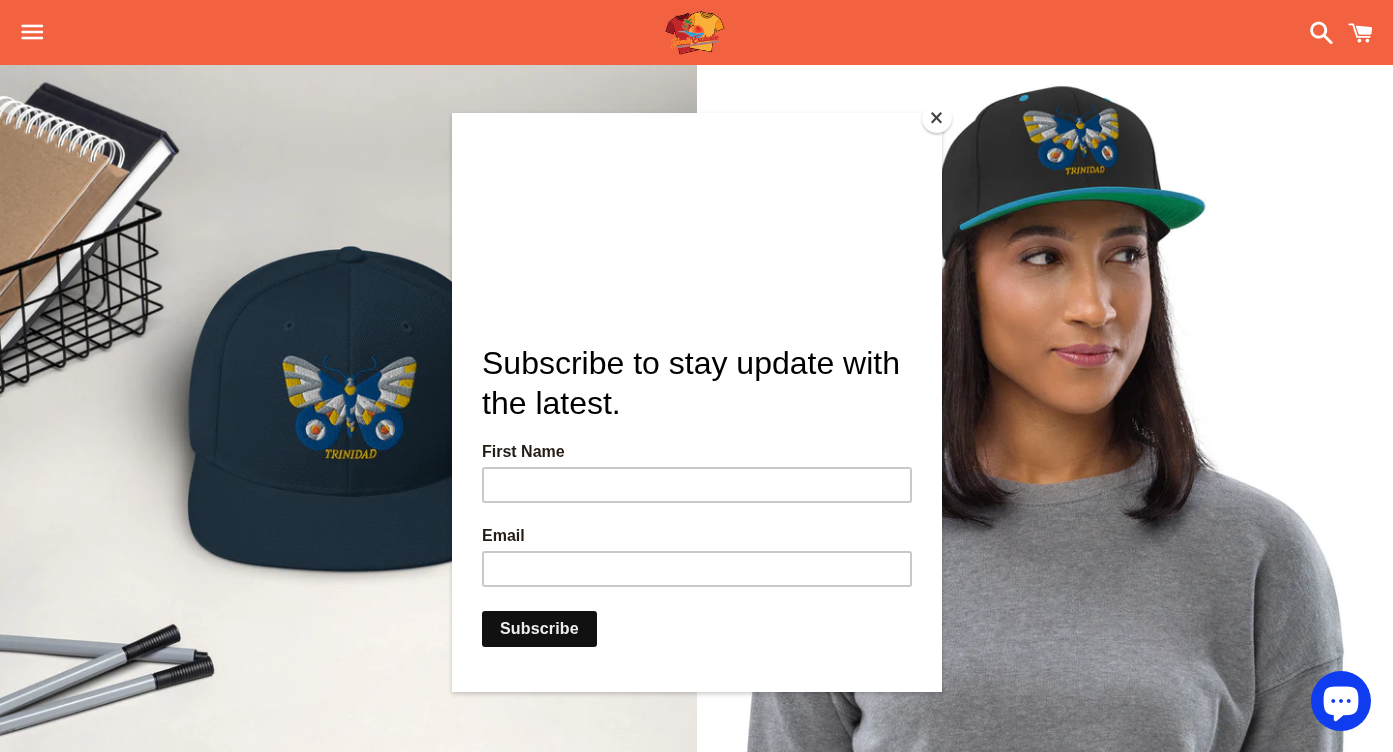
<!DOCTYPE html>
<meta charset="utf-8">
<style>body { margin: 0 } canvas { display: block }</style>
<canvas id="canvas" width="1393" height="752"></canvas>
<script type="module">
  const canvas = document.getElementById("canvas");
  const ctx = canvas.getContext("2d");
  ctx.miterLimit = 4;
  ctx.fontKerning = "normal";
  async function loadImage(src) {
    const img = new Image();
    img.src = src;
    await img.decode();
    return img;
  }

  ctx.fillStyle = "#ffffff";
  ctx.fillRect(0, 0, 1393, 752);
  ctx.fillStyle = "#f26241";
  ctx.fillRect(0, 0, 1393, 65);
  ctx.drawImage(await loadImage("img1.png"), 21, 24, 23, 16);
  ctx.drawImage(await loadImage("img2.png"), 665, 11, 60, 44);
  ctx.drawImage(await loadImage("img3.png"), 1310, 21, 23, 24);
  ctx.drawImage(await loadImage("img4.png"), 1348, 23, 25, 20);
  ctx.drawImage(await loadImage("img5.png"), 0, 65, 697, 687);
  ctx.drawImage(await loadImage("img6.png"), 746, 85, 601, 667);
  ctx.fillStyle = "rgba(0, 0, 0, 0.2)";
  ctx.filter = "blur(2px)";
  ctx.beginPath();
  ctx.rect(452, 115, 490, 579);
  ctx.fill();
  ctx.filter = "none";
  ctx.drawImage(await loadImage("img7.png"), 452, 113, 490, 579);
  ctx.filter = "blur(1px)";
  ctx.beginPath();
  ctx.roundRect(922, 105, 30, 30, 15);
  ctx.fill();
  ctx.filter = "none";
  ctx.fillStyle = "#ffffff";
  ctx.beginPath();
  ctx.arc(937, 118, 15, 0, Math.PI * 2);
  ctx.fill();
  ctx.fillStyle = "#414141";
  ctx.beginPath();
  ctx.moveTo(940.5, 112);
  ctx.lineTo(942, 113.5);
  ctx.lineTo(932.5, 123.5);
  ctx.lineTo(931, 122);
  ctx.closePath();
  ctx.fill();
  ctx.beginPath();
  ctx.moveTo(931, 113.5);
  ctx.lineTo(932.5, 112);
  ctx.lineTo(942, 122);
  ctx.lineTo(940.5, 123.5);
  ctx.closePath();
  ctx.fill();
  ctx.fillStyle = "#0f3cef";
  ctx.beginPath();
  ctx.arc(1341, 701, 30, 0, Math.PI * 2);
  ctx.fill();
  ctx.drawImage(await loadImage("img8.png"), 1323, 686, 36, 36);
</script>
